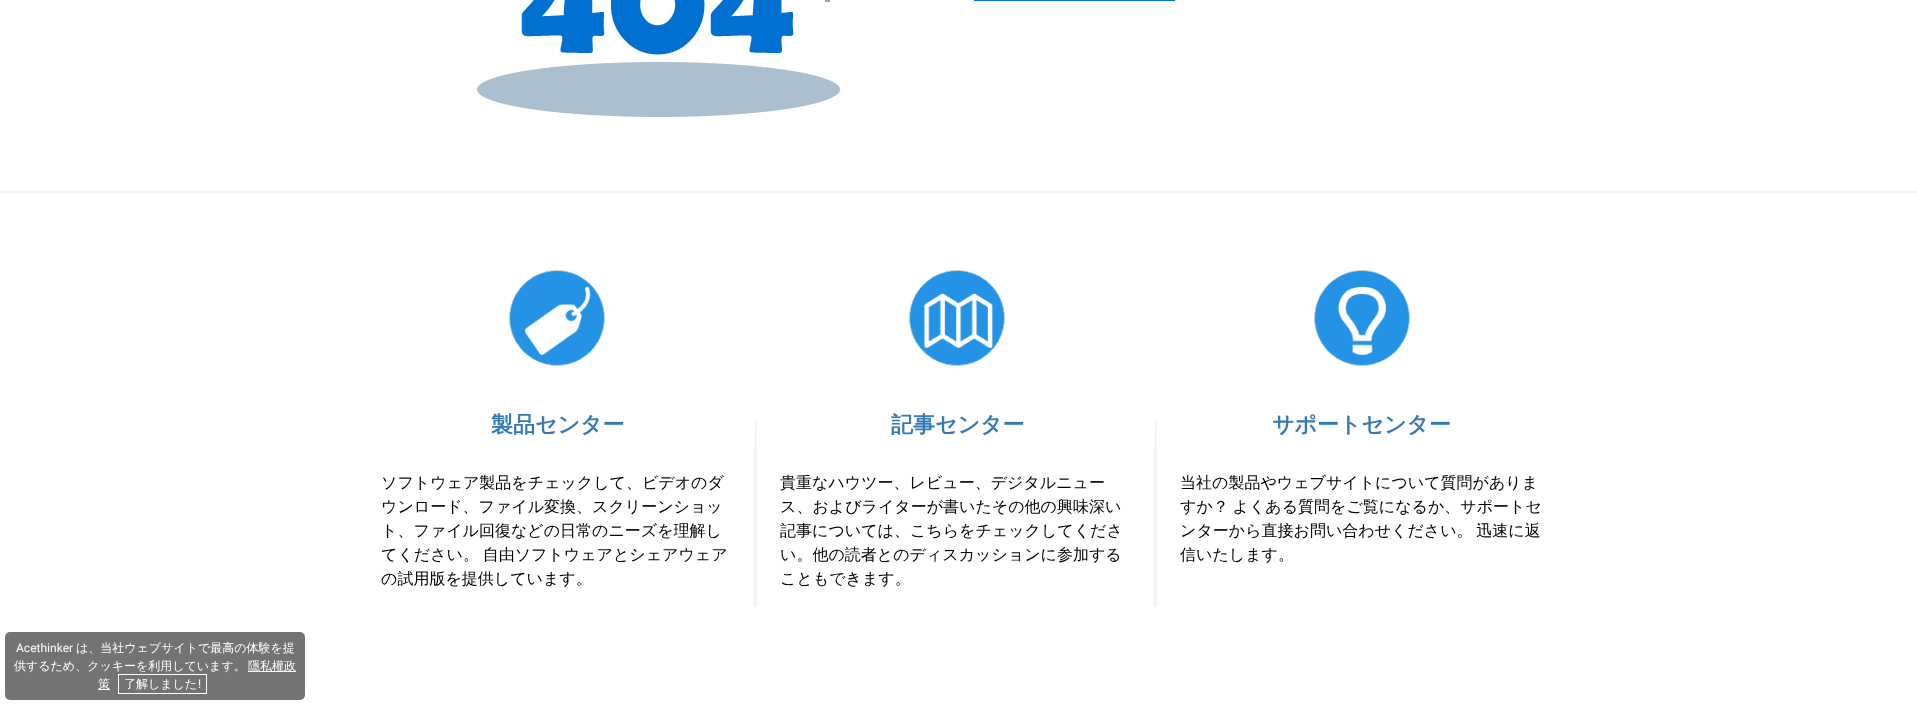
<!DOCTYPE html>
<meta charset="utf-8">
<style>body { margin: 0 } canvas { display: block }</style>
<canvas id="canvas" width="1917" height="720"></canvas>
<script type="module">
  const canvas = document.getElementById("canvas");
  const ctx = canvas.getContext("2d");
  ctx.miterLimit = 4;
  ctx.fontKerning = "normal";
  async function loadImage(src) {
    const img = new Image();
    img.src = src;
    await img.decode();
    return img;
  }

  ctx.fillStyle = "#ffffff";
  ctx.fillRect(0, 0, 1917, 720);
  ctx.fillStyle = "#f0f0f0";
  ctx.fillRect(0, 191, 1917, 2);
  ctx.drawImage(await loadImage("img1.png"), 477, 0, 363, 117);
  ctx.fillStyle = "#0071d1";
  ctx.fillRect(974, 0, 201, 1);
  ctx.drawImage(await loadImage("img2.png"), 753, 419, 4, 188);
  ctx.drawImage(await loadImage("img3.png"), 509, 270, 96, 96);
  ctx.font = "bold 22px WenQuanYi Zen Hei";
  ctx.fillStyle = "#337ab7";
  ctx.fillText("製品センター", 491, 432);
  ctx.font = "500 16px WenQuanYi Zen Hei";
  ctx.fillStyle = "#000000";
  ctx.fillText("ソフトウェア製品をチェックして、ビデオのダ", 381, 488);
  ctx.fillText("ウンロード、ファイル変換、スクリーンショッ", 381, 512);
  ctx.fillText("ト、ファイル回復などの日常のニーズを理解し", 381, 536);
  ctx.wordSpacing = "-1px";
  ctx.fillText("てください。 自由ソフトウェアとシェアウェア", 381, 560);
  ctx.wordSpacing = "0px";
  ctx.fillText("の試用版を提供しています。", 381, 584);
  ctx.drawImage(await loadImage("img2.png"), 1153, 419, 4, 188);
  ctx.drawImage(await loadImage("img4.png"), 909, 270, 96, 96);
  ctx.font = "bold 22px WenQuanYi Zen Hei";
  ctx.fillStyle = "#337ab7";
  ctx.fillText("記事センター", 891, 432);
  ctx.font = "500 16px WenQuanYi Zen Hei";
  ctx.fillStyle = "#000000";
  ctx.fillText("貴重なハウツー、レビュー、デジタルニュー", 780, 488);
  ctx.fillText("ス、およびライターが書いたその他の興味深い", 780, 512);
  ctx.fillText("記事については、こちらをチェックしてくださ", 780, 536);
  ctx.fillText("い。他の読者とのディスカッションに参加する", 780, 560);
  ctx.fillText("こともできます。", 780, 584);
  ctx.drawImage(await loadImage("img5.png"), 1314, 270, 96, 96);
  ctx.font = "bold 22px WenQuanYi Zen Hei";
  ctx.fillStyle = "#337ab7";
  ctx.fillText("サポートセンター", 1272, 432);
  ctx.font = "500 16px WenQuanYi Zen Hei";
  ctx.fillStyle = "#000000";
  ctx.fillText("当社の製品やウェブサイトについて質問がありま", 1180, 488);
  ctx.wordSpacing = "-1px";
  ctx.fillText("すか？ よくある質問をご覧になるか、サポートセ", 1180, 512);
  ctx.fillText("ンターから直接お問い合わせください。 迅速に返", 1180, 536);
  ctx.wordSpacing = "0px";
  ctx.fillText("信いたします。", 1180, 560);
  ctx.fillStyle = "#737373";
  ctx.beginPath();
  ctx.roundRect(5, 632, 300, 68, 5);
  ctx.fill();
  ctx.font = "12px Heebo";
  ctx.fillStyle = "#ffffff";
  ctx.fillText("Acethinker", 16, 652);
  ctx.font = "500 12px WenQuanYi Zen Hei";
  ctx.fillText("は、当社ウェブサイトで最高の体験を提", 76, 652);
  ctx.fillText("供するため、クッキーを利用しています。", 14, 670);
  ctx.fillRect(248, 671, 48, 1);
  ctx.fillText("隱私權政", 248, 670);
  ctx.fillRect(98, 689, 12, 1);
  ctx.fillText("策", 98, 688);
  ctx.strokeStyle = "#ffffff";
  ctx.strokeRect(118.5, 674.5, 88, 19);
  ctx.fillText("了解しました", 124, 688);
  ctx.font = "12px Heebo";
  ctx.fillText("!", 198, 688);
</script>
